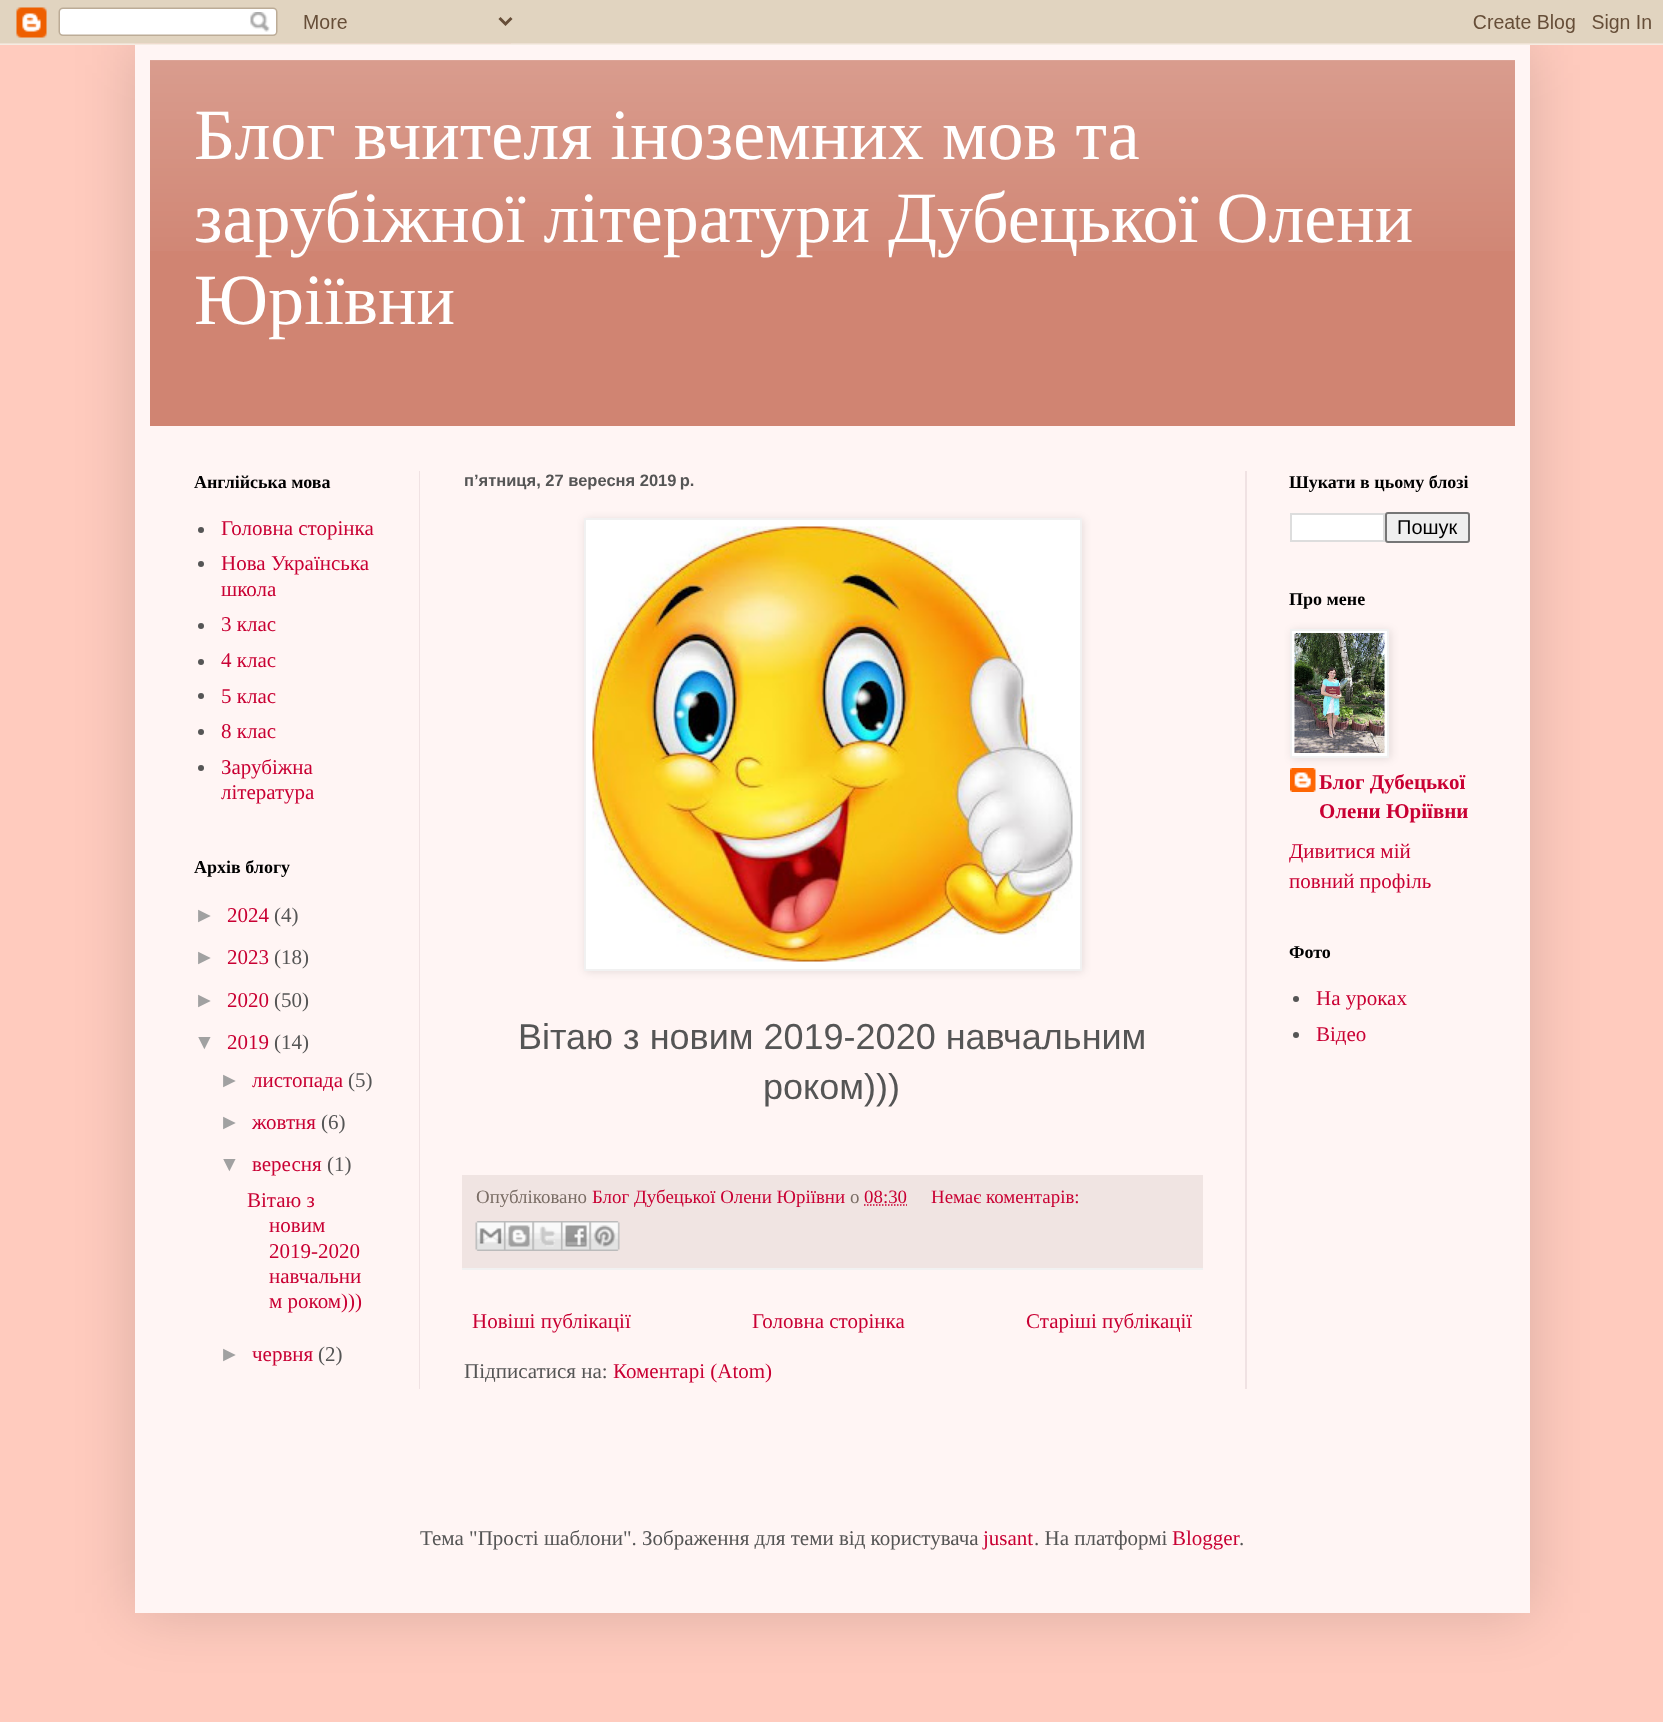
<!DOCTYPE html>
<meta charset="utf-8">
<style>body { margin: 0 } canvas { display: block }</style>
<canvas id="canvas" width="1663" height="1722"></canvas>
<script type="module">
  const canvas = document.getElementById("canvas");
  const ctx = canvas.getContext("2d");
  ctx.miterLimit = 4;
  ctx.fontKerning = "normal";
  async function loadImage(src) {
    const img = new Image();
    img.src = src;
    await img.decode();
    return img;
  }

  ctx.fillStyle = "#ffcbbe";
  ctx.fillRect(0, 0, 1663, 1722);
  ctx.fillStyle = "rgba(0, 0, 0, 0.15)";
  ctx.filter = "blur(30px)";
  ctx.beginPath();
  ctx.rect(135, 45, 1395, 1568);
  ctx.fill();
  ctx.filter = "none";
  ctx.drawImage(await loadImage("img1.png"), 0, 0, 1663, 45);
  ctx.fillStyle = "#fff5f4";
  ctx.fillRect(135, 45, 1395, 1568);
  ctx.fillStyle = "#d08472";
  ctx.fillRect(150, 60, 1365, 366);
  ctx.drawImage(await loadImage("img2.png"), 150, 60, 1365, 191);
  ctx.font = "72px Liberation Serif";
  ctx.fillStyle = "#ffffff";
  ctx.fillText("Блог вчителя іноземних мов та", 194, 159);
  ctx.fillText("зарубіжної літератури Дубецької Олени", 194, 242);
  ctx.fillText("Юріївни", 194, 324);
  ctx.fillStyle = "#f0e2e3";
  ctx.fillRect(419, 471, 1, 918);
  ctx.fillRect(1245, 471, 2, 918);
  ctx.font = "bold 18px Liberation Serif";
  ctx.fillStyle = "#000000";
  ctx.fillText("Англійська мова", 194, 488);
  ctx.fillStyle = "#555555";
  ctx.beginPath();
  ctx.arc(201, 530, 3, 0, Math.PI * 2);
  ctx.fill();
  ctx.font = "21px Liberation Serif";
  ctx.fillStyle = "#c90033";
  ctx.fillText("Головна сторінка", 221, 535);
  ctx.fillStyle = "#555555";
  ctx.beginPath();
  ctx.arc(201, 564, 3, 0, Math.PI * 2);
  ctx.fill();
  ctx.fillStyle = "#c90033";
  ctx.fillText("Нова Українська", 221, 570);
  ctx.fillText("школа", 221, 596);
  ctx.fillStyle = "#555555";
  ctx.beginPath();
  ctx.arc(201, 626, 3, 0, Math.PI * 2);
  ctx.fill();
  ctx.fillStyle = "#c90033";
  ctx.fillText("3 клас", 221, 631);
  ctx.fillStyle = "#555555";
  ctx.beginPath();
  ctx.arc(201, 662, 3, 0, Math.PI * 2);
  ctx.fill();
  ctx.fillStyle = "#c90033";
  ctx.fillText("4 клас", 221, 667);
  ctx.fillStyle = "#555555";
  ctx.beginPath();
  ctx.arc(201, 696, 3, 0, Math.PI * 2);
  ctx.fill();
  ctx.fillStyle = "#c90033";
  ctx.fillText("5 клас", 221, 703);
  ctx.fillStyle = "#555555";
  ctx.beginPath();
  ctx.arc(201, 732, 3, 0, Math.PI * 2);
  ctx.fill();
  ctx.fillStyle = "#c90033";
  ctx.fillText("8 клас", 221, 738);
  ctx.fillStyle = "#555555";
  ctx.beginPath();
  ctx.arc(201, 768, 3, 0, Math.PI * 2);
  ctx.fill();
  ctx.fillStyle = "#c90033";
  ctx.fillText("Зарубіжна", 221, 774);
  ctx.fillText("література", 221, 799);
  ctx.font = "bold 18px Liberation Serif";
  ctx.fillStyle = "#000000";
  ctx.fillText("Архів блогу", 194, 873);
  ctx.font = "21px Liberation Sans";
  ctx.fillStyle = "#a1a1a1";
  ctx.fillText("►", 194, 922);
  ctx.font = "21px Liberation Serif";
  ctx.fillStyle = "#c90033";
  ctx.fillText("2024", 227, 922);
  ctx.fillStyle = "#555555";
  ctx.fillText("(4)", 274, 922);
  ctx.font = "21px Liberation Sans";
  ctx.fillStyle = "#a1a1a1";
  ctx.fillText("►", 194, 964);
  ctx.font = "21px Liberation Serif";
  ctx.fillStyle = "#c90033";
  ctx.fillText("2023", 227, 964);
  ctx.fillStyle = "#555555";
  ctx.fillText("(18)", 274, 964);
  ctx.font = "21px Liberation Sans";
  ctx.fillStyle = "#a1a1a1";
  ctx.fillText("►", 194, 1007);
  ctx.font = "21px Liberation Serif";
  ctx.fillStyle = "#c90033";
  ctx.fillText("2020", 227, 1007);
  ctx.fillStyle = "#555555";
  ctx.fillText("(50)", 274, 1007);
  ctx.font = "21px Liberation Sans";
  ctx.fillStyle = "#a1a1a1";
  ctx.fillText("▼", 194, 1049);
  ctx.font = "21px Liberation Serif";
  ctx.fillStyle = "#c90033";
  ctx.fillText("2019", 227, 1049);
  ctx.fillStyle = "#555555";
  ctx.fillText("(14)", 274, 1049);
  ctx.font = "21px Liberation Sans";
  ctx.fillStyle = "#a1a1a1";
  ctx.fillText("►", 219, 1087);
  ctx.font = "21px Liberation Serif";
  ctx.fillStyle = "#c90033";
  ctx.fillText("листопада", 252, 1087);
  ctx.fillStyle = "#555555";
  ctx.fillText("(5)", 348, 1087);
  ctx.font = "21px Liberation Sans";
  ctx.fillStyle = "#a1a1a1";
  ctx.fillText("►", 219, 1129);
  ctx.font = "21px Liberation Serif";
  ctx.fillStyle = "#c90033";
  ctx.fillText("жовтня", 252, 1129);
  ctx.fillStyle = "#555555";
  ctx.fillText("(6)", 321, 1129);
  ctx.font = "21px Liberation Sans";
  ctx.fillStyle = "#a1a1a1";
  ctx.fillText("▼", 219, 1171);
  ctx.font = "21px Liberation Serif";
  ctx.fillStyle = "#c90033";
  ctx.fillText("вересня", 252, 1171);
  ctx.fillStyle = "#555555";
  ctx.fillText("(1)", 327, 1171);
  ctx.fillStyle = "#c90033";
  ctx.fillText("Вітаю з", 247, 1207);
  ctx.fillText("новим", 269, 1232);
  ctx.fillText("2019-2020", 269, 1258);
  ctx.fillText("навчальни", 269, 1283);
  ctx.fillText("м роком)))", 269, 1308);
  ctx.font = "21px Liberation Sans";
  ctx.fillStyle = "#a1a1a1";
  ctx.fillText("►", 219, 1361);
  ctx.font = "21px Liberation Serif";
  ctx.fillStyle = "#c90033";
  ctx.fillText("червня", 252, 1361);
  ctx.fillStyle = "#555555";
  ctx.fillText("(2)", 318, 1361);
  ctx.font = "bold 16.5px Liberation Sans";
  ctx.fillText("пʼятниця, 27 вересня 2019 р.", 464, 486);
  ctx.fillStyle = "rgba(0, 0, 0, 0.1)";
  ctx.filter = "blur(4px)";
  ctx.beginPath();
  ctx.rect(585, 519, 498, 453);
  ctx.fill();
  ctx.filter = "none";
  ctx.fillStyle = "#ffffff";
  ctx.beginPath();
  ctx.rect(585, 519, 496, 451);
  ctx.fill();
  ctx.strokeStyle = "#f1f1f1";
  ctx.lineWidth = 2;
  ctx.stroke();
  ctx.drawImage(await loadImage("img3.png"), 592, 526, 481, 436);
  ctx.font = "36px Liberation Sans";
  ctx.fillStyle = "#555555";
  ctx.fillText("Вітаю з новим 2019-2020 навчальним", 518, 1049);
  ctx.fillText("роком)))", 763, 1099);
  ctx.fillStyle = "#f0e4e2";
  ctx.fillRect(462, 1175, 741, 93);
  ctx.fillStyle = "#f1f1f1";
  ctx.fillRect(462, 1268, 741, 2);
  ctx.font = "18.9px Liberation Serif";
  ctx.fillStyle = "#7a6d65";
  ctx.fillText("Опубліковано", 476, 1203);
  ctx.fillStyle = "#c90033";
  ctx.fillText("Блог Дубецької Олени Юріївни", 592, 1203);
  ctx.fillStyle = "#7a6d65";
  ctx.fillText("о", 850, 1203);
  ctx.fillStyle = "#c90033";
  ctx.fillText("08:30", 864, 1203);
  ctx.beginPath();
  ctx.moveTo(864, 1205);
  ctx.lineTo(907, 1205);
  ctx.strokeStyle = "#c90033";
  ctx.lineWidth = 1.5;
  ctx.setLineDash([1.5, 1.5]);
  ctx.stroke();
  ctx.fillText("Немає коментарів:", 931, 1203);
  ctx.drawImage(await loadImage("img4.png"), 475, 1221, 29, 30);
  ctx.drawImage(await loadImage("img5.png"), 504, 1221, 29, 30);
  ctx.drawImage(await loadImage("img6.png"), 532, 1221, 29, 30);
  ctx.drawImage(await loadImage("img7.png"), 561, 1221, 29, 30);
  ctx.drawImage(await loadImage("img8.png"), 589, 1221, 31, 30);
  ctx.font = "21px Liberation Serif";
  ctx.fillText("Новіші публікації", 472, 1328);
  ctx.fillText("Головна сторінка", 752, 1328);
  ctx.fillText("Старіші публікації", 1026, 1328);
  ctx.fillStyle = "#555555";
  ctx.fillText("Підписатися на:", 464, 1378);
  ctx.fillStyle = "#c90033";
  ctx.fillText("Коментарі (Atom)", 613, 1378);
  ctx.font = "bold 18px Liberation Serif";
  ctx.fillStyle = "#000000";
  ctx.fillText("Шукати в цьому блозі", 1289, 488);
  ctx.fillStyle = "#ffffff";
  ctx.beginPath();
  ctx.rect(1291, 514, 93, 27);
  ctx.fill();
  ctx.strokeStyle = "#dddddd";
  ctx.lineWidth = 2;
  ctx.setLineDash([]);
  ctx.stroke();
  ctx.fillStyle = "#efefef";
  ctx.beginPath();
  ctx.roundRect(1386, 513, 83, 29, 2);
  ctx.fill();
  ctx.strokeStyle = "#767676";
  ctx.stroke();
  ctx.font = "20px Liberation Sans";
  ctx.fillStyle = "#000000";
  ctx.fillText("Пошук", 1397, 534);
  ctx.font = "bold 18px Liberation Serif";
  ctx.fillText("Про мене", 1289, 605);
  ctx.drawImage(await loadImage("img10.png"), 1290, 768, 26, 24);
  ctx.fillStyle = "rgba(0, 0, 0, 0.1)";
  ctx.filter = "blur(4px)";
  ctx.beginPath();
  ctx.rect(1292, 630, 99, 129);
  ctx.fill();
  ctx.filter = "none";
  ctx.fillStyle = "#ffffff";
  ctx.beginPath();
  ctx.rect(1291, 630, 97, 127);
  ctx.fill();
  ctx.strokeStyle = "#f1f1f1";
  ctx.stroke();
  ctx.drawImage(await loadImage("img9.png"), 1294, 633, 91, 120);
  ctx.font = "bold 21px Liberation Serif";
  ctx.fillStyle = "#c90033";
  ctx.fillText("Блог Дубецької", 1319, 789);
  ctx.fillText("Олени Юріївни", 1319, 818);
  ctx.font = "21px Liberation Serif";
  ctx.fillText("Дивитися мій", 1289, 858);
  ctx.fillText("повний профіль", 1289, 888);
  ctx.font = "bold 18px Liberation Serif";
  ctx.fillStyle = "#000000";
  ctx.fillText("Фото", 1289, 958);
  ctx.fillStyle = "#555555";
  ctx.beginPath();
  ctx.arc(1296, 999, 3, 0, Math.PI * 2);
  ctx.fill();
  ctx.font = "21px Liberation Serif";
  ctx.fillStyle = "#c90033";
  ctx.fillText("На уроках", 1316, 1005);
  ctx.fillStyle = "#555555";
  ctx.beginPath();
  ctx.arc(1296, 1035, 3, 0, Math.PI * 2);
  ctx.fill();
  ctx.fillStyle = "#c90033";
  ctx.fillText("Відео", 1316, 1041);
  ctx.fillStyle = "#555555";
  ctx.fillText("Тема \"Прості шаблони\". Зображення для теми від користувача", 420, 1545);
  ctx.fillStyle = "#c90033";
  ctx.fillText("jusant", 983, 1545);
  ctx.fillStyle = "#555555";
  ctx.fillText(". На платформі", 1034, 1545);
  ctx.fillStyle = "#c90033";
  ctx.fillText("Blogger", 1172, 1545);
  ctx.fillStyle = "#555555";
  ctx.fillText(".", 1239, 1545);
</script>
